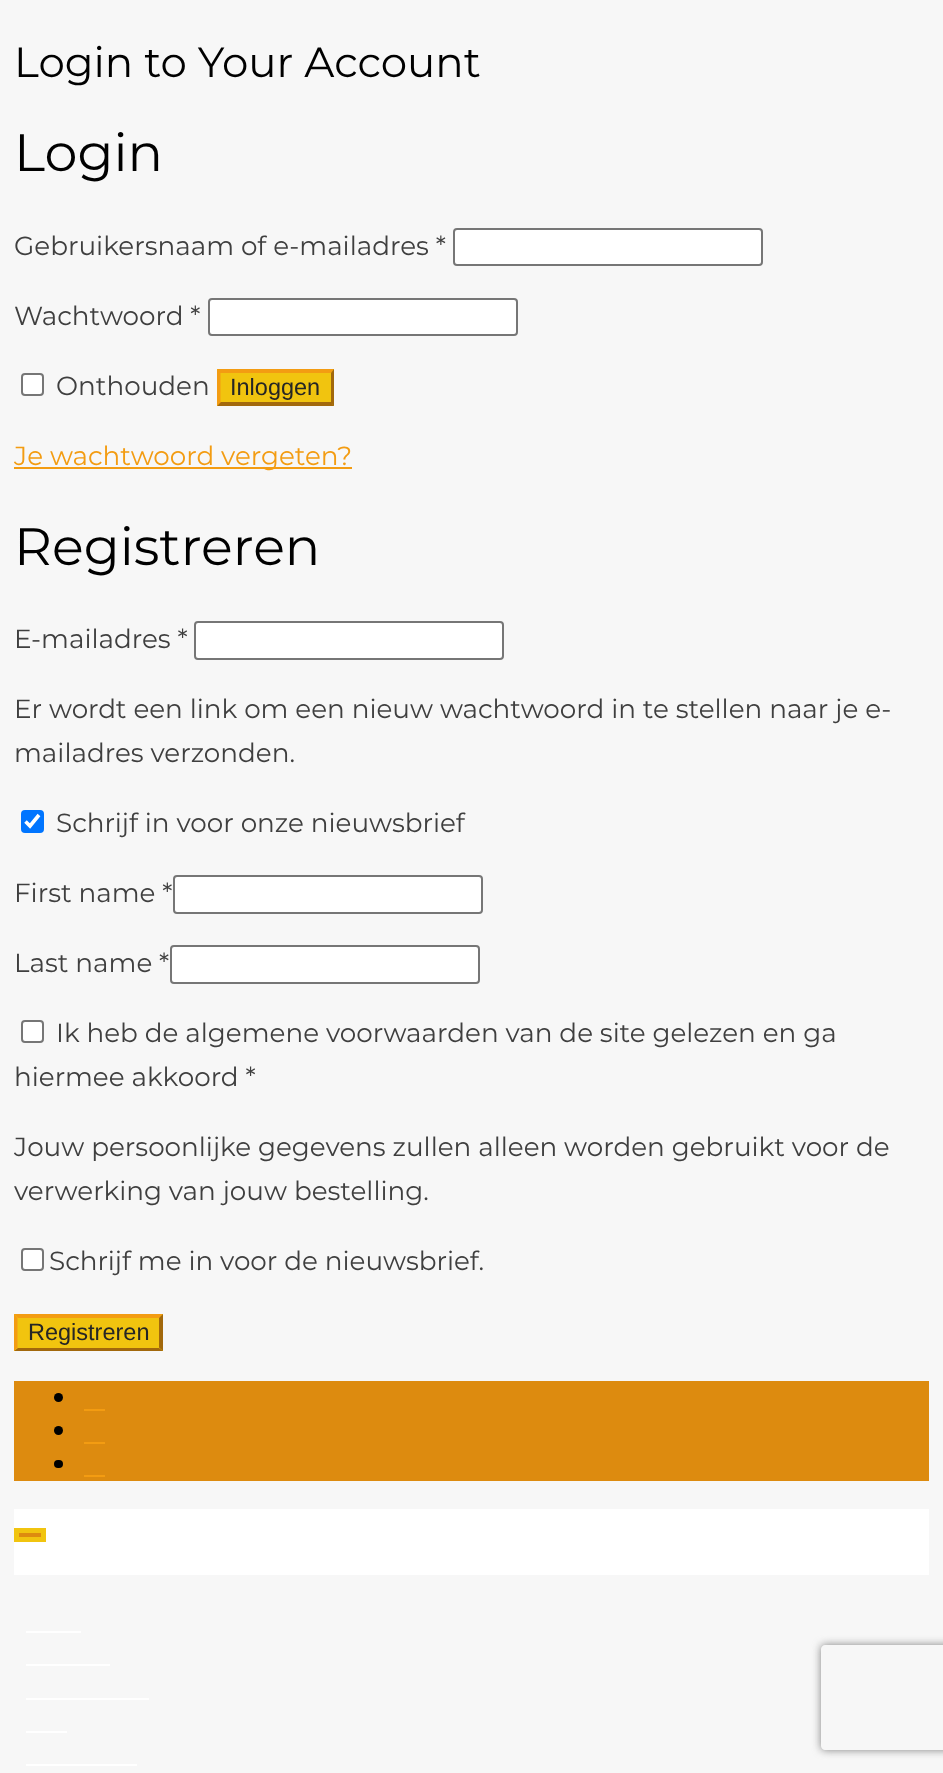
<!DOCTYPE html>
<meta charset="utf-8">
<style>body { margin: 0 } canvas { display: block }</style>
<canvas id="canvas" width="943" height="1773"></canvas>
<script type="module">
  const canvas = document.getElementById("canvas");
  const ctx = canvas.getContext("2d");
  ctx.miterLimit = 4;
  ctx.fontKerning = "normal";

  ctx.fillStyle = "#f7f7f7";
  ctx.fillRect(0, 0, 943, 1773);
  ctx.font = "100 42px Montserrat";
  ctx.fillStyle = "#000000";
  ctx.fillText("Login to Your Account", 14, 77);
  ctx.font = "100 52.5px Montserrat";
  ctx.fillText("Login", 14, 171);
  ctx.font = "100 26.25px Montserrat";
  ctx.fillStyle = "#3f3f3f";
  ctx.fillText("Gebruikersnaam of e-mailadres *", 14, 255);
  ctx.fillStyle = "#ffffff";
  ctx.beginPath();
  ctx.roundRect(454, 229, 308, 36, 3);
  ctx.fill();
  ctx.strokeStyle = "#767676";
  ctx.lineWidth = 2;
  ctx.stroke();
  ctx.fillStyle = "#3f3f3f";
  ctx.fillText("Wachtwoord *", 14, 325);
  ctx.fillStyle = "#ffffff";
  ctx.beginPath();
  ctx.roundRect(209, 299, 308, 36, 3);
  ctx.fill();
  ctx.stroke();
  ctx.beginPath();
  ctx.roundRect(22, 374, 21, 21, 3);
  ctx.fill();
  ctx.stroke();
  ctx.fillStyle = "#3f3f3f";
  ctx.fillText("Onthouden", 56, 395);
  ctx.fillStyle = "#f1c40f";
  ctx.fillRect(217, 369, 117, 37);
  ctx.fillStyle = "#f39c12";
  ctx.beginPath();
  ctx.moveTo(217, 369);
  ctx.lineTo(334, 369);
  ctx.lineTo(331, 373);
  ctx.lineTo(220, 373);
  ctx.closePath();
  ctx.fill();
  ctx.fillStyle = "#a2680c";
  ctx.beginPath();
  ctx.moveTo(334, 369);
  ctx.lineTo(334, 406);
  ctx.lineTo(331, 402.5);
  ctx.lineTo(331, 373);
  ctx.closePath();
  ctx.fill();
  ctx.beginPath();
  ctx.moveTo(334, 406);
  ctx.lineTo(217, 406);
  ctx.lineTo(220, 402);
  ctx.lineTo(331, 402);
  ctx.closePath();
  ctx.fill();
  ctx.fillStyle = "#f39c12";
  ctx.beginPath();
  ctx.moveTo(217, 406);
  ctx.lineTo(217, 369);
  ctx.lineTo(220.5, 373);
  ctx.lineTo(220.5, 402.5);
  ctx.closePath();
  ctx.fill();
  ctx.font = "23.5px Liberation Sans";
  ctx.fillStyle = "#252525";
  ctx.fillText("Inloggen", 230, 395);
  ctx.fillStyle = "#f39c12";
  ctx.fillRect(14, 467, 338, 2);
  ctx.font = "100 26.25px Montserrat";
  ctx.fillText("Je wachtwoord vergeten?", 14, 465);
  ctx.font = "100 52.5px Montserrat";
  ctx.fillStyle = "#000000";
  ctx.fillText("Registreren", 14, 565);
  ctx.font = "100 26.25px Montserrat";
  ctx.fillStyle = "#3f3f3f";
  ctx.fillText("E-mailadres *", 14, 648);
  ctx.fillStyle = "#ffffff";
  ctx.beginPath();
  ctx.roundRect(195, 622, 308, 37, 3);
  ctx.fill();
  ctx.stroke();
  ctx.fillStyle = "#3f3f3f";
  ctx.fillText("Er wordt een link om een nieuw wachtwoord in te stellen naar je e-", 14, 718);
  ctx.fillText("mailadres verzonden.", 14, 762);
  ctx.fillStyle = "#0075ff";
  ctx.beginPath();
  ctx.roundRect(21, 810, 23, 23, 4);
  ctx.fill();
  ctx.beginPath();
  ctx.moveTo(25.5, 821.5);
  ctx.lineTo(30, 826);
  ctx.lineTo(39, 815);
  ctx.strokeStyle = "#ffffff";
  ctx.lineWidth = 3.6;
  ctx.stroke();
  ctx.fillStyle = "#3f3f3f";
  ctx.fillText("Schrijf in voor onze nieuwsbrief", 56, 832);
  ctx.fillText("First name *", 14, 902);
  ctx.fillStyle = "#ffffff";
  ctx.beginPath();
  ctx.roundRect(174, 876, 308, 37, 3);
  ctx.fill();
  ctx.strokeStyle = "#767676";
  ctx.lineWidth = 2;
  ctx.stroke();
  ctx.fillStyle = "#3f3f3f";
  ctx.fillText("Last name *", 14, 972);
  ctx.fillStyle = "#ffffff";
  ctx.beginPath();
  ctx.roundRect(171, 946, 308, 37, 3);
  ctx.fill();
  ctx.stroke();
  ctx.beginPath();
  ctx.roundRect(22, 1021, 21, 21, 3);
  ctx.fill();
  ctx.stroke();
  ctx.fillStyle = "#3f3f3f";
  ctx.fillText("Ik heb de algemene voorwaarden van de site gelezen en ga", 56, 1042);
  ctx.fillText("hiermee akkoord *", 14, 1086);
  ctx.fillText("Jouw persoonlijke gegevens zullen alleen worden gebruikt voor de", 14, 1156);
  ctx.fillText("verwerking van jouw bestelling.", 14, 1200);
  ctx.fillStyle = "#ffffff";
  ctx.beginPath();
  ctx.roundRect(22, 1249, 21, 21, 3);
  ctx.fill();
  ctx.stroke();
  ctx.fillStyle = "#3f3f3f";
  ctx.fillText("Schrijf me in voor de nieuwsbrief.", 49, 1270);
  ctx.fillStyle = "#f1c40f";
  ctx.fillRect(14, 1314, 149, 37);
  ctx.fillStyle = "#f39c12";
  ctx.beginPath();
  ctx.moveTo(14, 1314);
  ctx.lineTo(163, 1314);
  ctx.lineTo(159, 1318);
  ctx.lineTo(18, 1318);
  ctx.closePath();
  ctx.fill();
  ctx.fillStyle = "#a2680c";
  ctx.beginPath();
  ctx.moveTo(163, 1314);
  ctx.lineTo(163, 1351);
  ctx.lineTo(159, 1347.5);
  ctx.lineTo(159, 1318);
  ctx.closePath();
  ctx.fill();
  ctx.beginPath();
  ctx.moveTo(163, 1351);
  ctx.lineTo(14, 1351);
  ctx.lineTo(18, 1348);
  ctx.lineTo(159, 1348);
  ctx.closePath();
  ctx.fill();
  ctx.fillStyle = "#f39c12";
  ctx.beginPath();
  ctx.moveTo(14, 1351);
  ctx.lineTo(14, 1314);
  ctx.lineTo(17.5, 1318);
  ctx.lineTo(17.5, 1347.5);
  ctx.closePath();
  ctx.fill();
  ctx.font = "23.5px Liberation Sans";
  ctx.fillStyle = "#252525";
  ctx.fillText("Registreren", 28, 1340);
  ctx.fillStyle = "#dd8b0f";
  ctx.fillRect(14, 1381, 915, 100);
  ctx.fillStyle = "#000000";
  ctx.beginPath();
  ctx.arc(58.5, 1397.5, 4.5, 0, Math.PI * 2);
  ctx.fill();
  ctx.fillStyle = "#f39c12";
  ctx.fillRect(84, 1409, 21, 2);
  ctx.fillStyle = "#000000";
  ctx.beginPath();
  ctx.arc(58.5, 1430.5, 4.5, 0, Math.PI * 2);
  ctx.fill();
  ctx.fillStyle = "#f39c12";
  ctx.fillRect(84, 1442, 21, 2);
  ctx.fillStyle = "#000000";
  ctx.beginPath();
  ctx.roundRect(54, 1460, 9, 8, 4);
  ctx.fill();
  ctx.fillStyle = "#f39c12";
  ctx.fillRect(84, 1475, 21, 2);
  ctx.fillStyle = "#ffffff";
  ctx.fillRect(14, 1509, 915, 66);
  ctx.fillStyle = "#dd8b0f";
  ctx.beginPath();
  ctx.rect(16.5, 1530.5, 27, 9);
  ctx.fill();
  ctx.strokeStyle = "#f1c40f";
  ctx.lineWidth = 5;
  ctx.stroke();
  ctx.fillStyle = "#ffffff";
  ctx.fillRect(26, 1631, 55, 2);
  ctx.fillRect(26, 1664, 84, 2);
  ctx.fillRect(26, 1698, 123, 2);
  ctx.fillRect(26, 1731, 41, 2);
  ctx.fillRect(26, 1764, 111, 2);
  ctx.save();
  ctx.beginPath();
  ctx.moveTo(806, 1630);
  ctx.lineTo(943, 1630);
  ctx.lineTo(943, 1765);
  ctx.lineTo(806, 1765);
  ctx.closePath();
  ctx.moveTo(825, 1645);
  ctx.lineTo(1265, 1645);
  ctx.bezierCurveTo(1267, 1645, 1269, 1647, 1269, 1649);
  ctx.lineTo(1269, 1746);
  ctx.bezierCurveTo(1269, 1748, 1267, 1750, 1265, 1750);
  ctx.lineTo(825, 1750);
  ctx.bezierCurveTo(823, 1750, 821, 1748, 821, 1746);
  ctx.lineTo(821, 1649);
  ctx.bezierCurveTo(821, 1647, 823, 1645, 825, 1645);
  ctx.closePath();
  ctx.clip("evenodd");
  ctx.fillStyle = "#808080";
  ctx.filter = "blur(4.5px)";
  ctx.beginPath();
  ctx.roundRect(821, 1645, 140, 105, 4);
  ctx.fill();
  ctx.filter = "none";
  ctx.restore();
</script>
